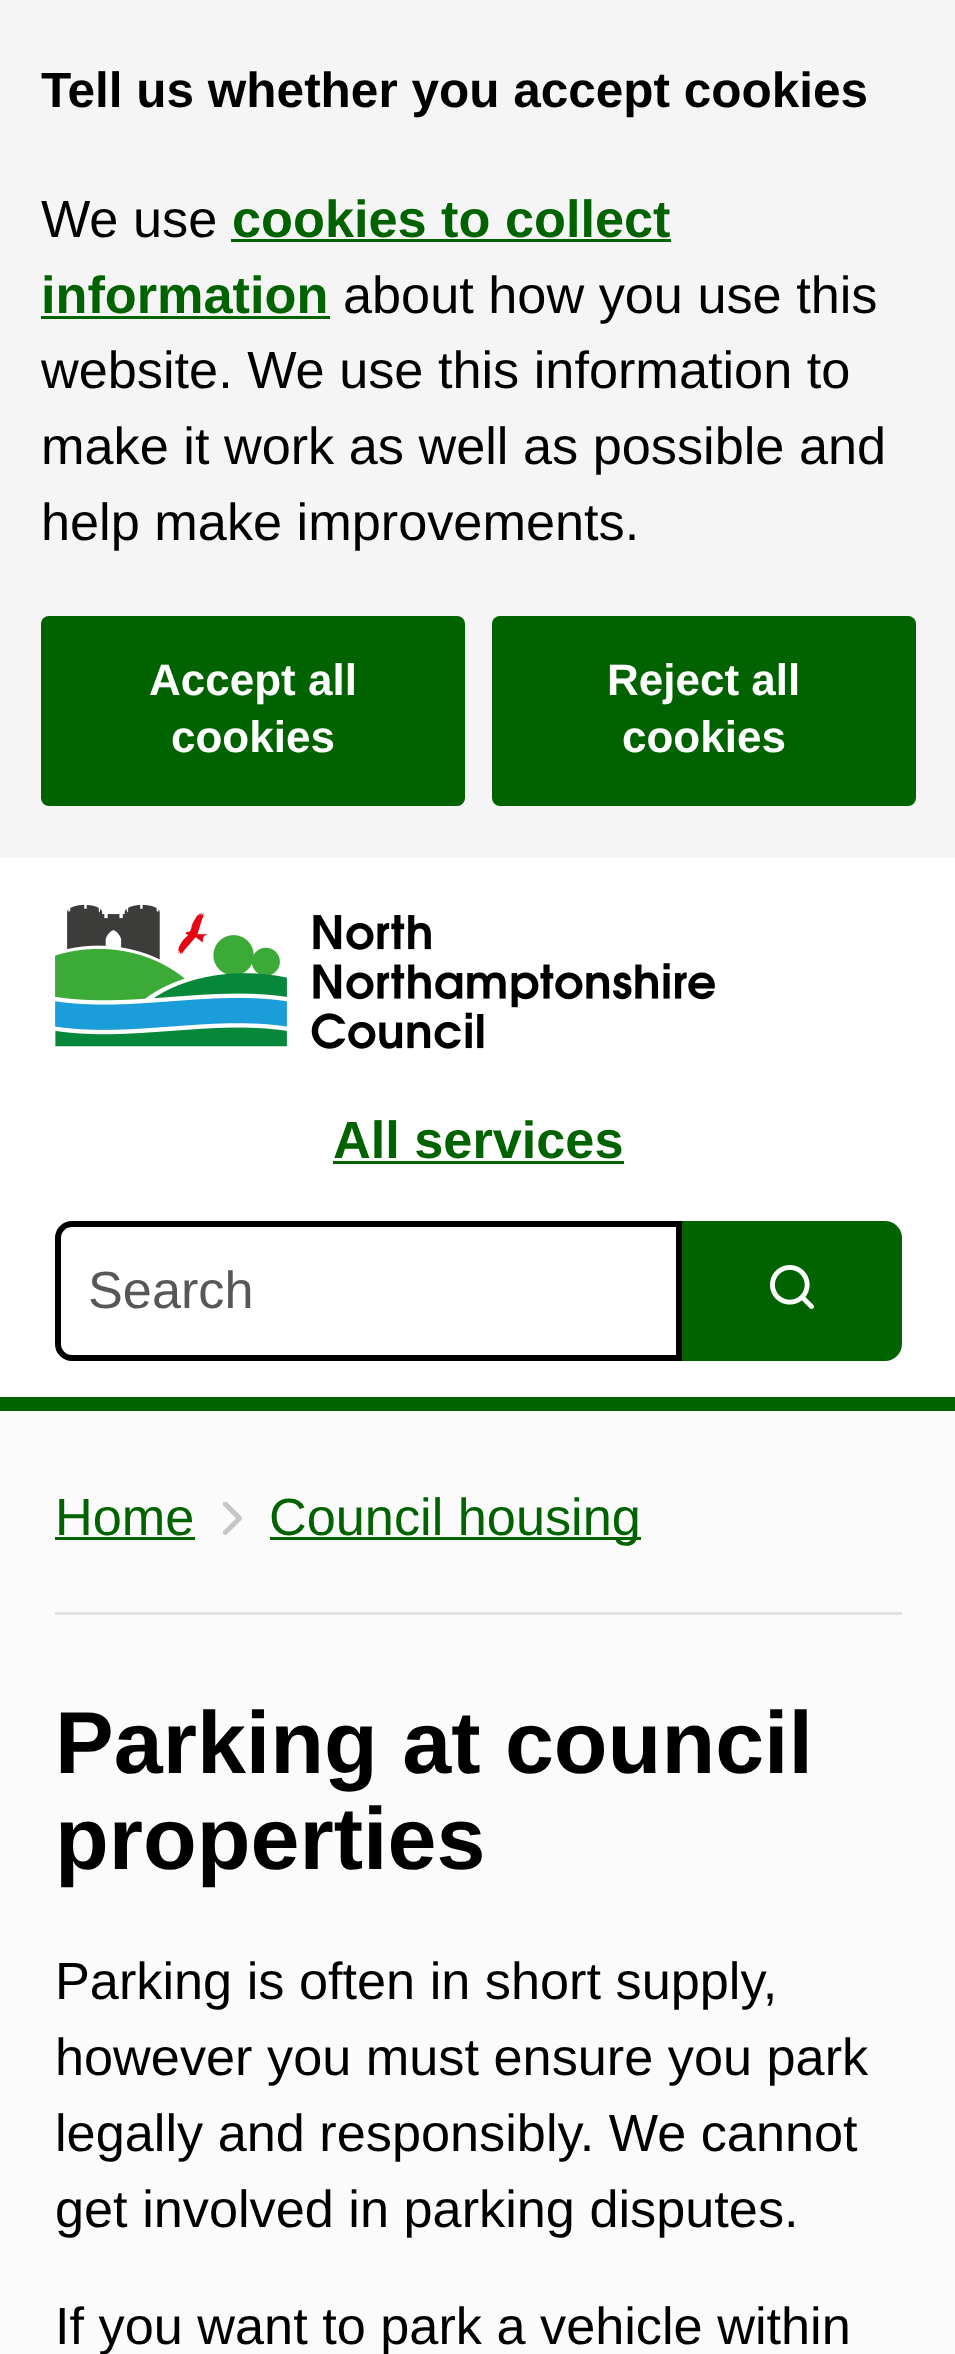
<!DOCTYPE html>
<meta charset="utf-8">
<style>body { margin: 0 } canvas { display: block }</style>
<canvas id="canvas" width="955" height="2354"></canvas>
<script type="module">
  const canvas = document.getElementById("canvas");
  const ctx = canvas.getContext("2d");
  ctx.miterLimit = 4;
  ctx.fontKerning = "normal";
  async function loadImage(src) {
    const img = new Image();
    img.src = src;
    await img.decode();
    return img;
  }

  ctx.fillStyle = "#fbfbfb";
  ctx.fillRect(0, 0, 955, 2354);
  ctx.fillStyle = "#f5f5f5";
  ctx.fillRect(0, 0, 955, 858);
  ctx.font = "bold 49.5px Liberation Sans";
  ctx.fillStyle = "#000000";
  ctx.fillText("Tell us whether you accept cookies", 41, 107);
  ctx.font = "52.25px Liberation Sans";
  ctx.fillText("We use", 41, 237);
  ctx.font = "bold 52.25px Liberation Sans";
  ctx.fillStyle = "#016200";
  ctx.fillText("cookies to collect", 232, 237);
  ctx.fillRect(231, 239, 440, 3);
  ctx.fillText("information", 41, 313);
  ctx.fillRect(41, 316, 289, 3);
  ctx.font = "52.25px Liberation Sans";
  ctx.fillStyle = "#000000";
  ctx.fillText("about how you use this", 343, 313);
  ctx.fillText("website. We use this information to", 41, 388);
  ctx.fillText("make it work as well as possible and", 41, 464);
  ctx.fillText("help make improvements.", 41, 540);
  ctx.fillStyle = "#016200";
  ctx.beginPath();
  ctx.roundRect(41, 616, 424, 190, 8);
  ctx.fill();
  ctx.font = "bold 44px Liberation Sans";
  ctx.fillStyle = "#ffffff";
  ctx.fillText("Accept all", 149, 695);
  ctx.fillText("cookies", 171, 752);
  ctx.fillStyle = "#016200";
  ctx.beginPath();
  ctx.roundRect(492, 616, 424, 190, 8);
  ctx.fill();
  ctx.fillStyle = "#ffffff";
  ctx.fillText("Reject all", 607, 695);
  ctx.fillText("cookies", 622, 752);
  ctx.fillRect(0, 858, 955, 539);
  ctx.fillStyle = "#016200";
  ctx.fillRect(0, 1397, 955, 14);
  ctx.drawImage(await loadImage("img1.png"), 55, 904, 660, 145);
  ctx.font = "bold 52.25px Liberation Sans";
  ctx.fillText("All services", 333, 1158);
  ctx.fillRect(333, 1161, 291, 3);
  ctx.beginPath();
  ctx.roundRect(58, 1224, 621, 134, [14, 0, 0, 14]);
  ctx.strokeStyle = "#000000";
  ctx.lineWidth = 6;
  ctx.stroke();
  ctx.font = "52.25px Liberation Sans";
  ctx.fillStyle = "#585656";
  ctx.fillText("Search", 88, 1308);
  ctx.fillStyle = "#016200";
  ctx.beginPath();
  ctx.roundRect(682, 1221, 220, 140, [0, 17, 17, 0]);
  ctx.fill();
  ctx.drawImage(await loadImage("img2.png"), 770, 1265, 44, 44);
  ctx.fillStyle = "#e1e1e1";
  ctx.fillRect(55, 1612, 847, 3);
  ctx.fillStyle = "#016200";
  ctx.fillText("Home", 55, 1535);
  ctx.fillRect(55, 1537, 140, 3);
  ctx.drawImage(await loadImage("img3.png"), 223, 1502, 19, 33);
  ctx.fillRect(270, 1537, 371, 3);
  ctx.fillText("Council housing", 269, 1535);
  ctx.font = "bold 88px Liberation Sans";
  ctx.fillStyle = "#000000";
  ctx.fillText("Parking at council", 55, 1773);
  ctx.fillText("properties", 55, 1869);
  ctx.font = "52.25px Liberation Sans";
  ctx.fillText("Parking is often in short supply,", 55, 1999);
  ctx.fillText("however you must ensure you park", 55, 2075);
  ctx.fillText("legally and responsibly. We cannot", 55, 2151);
  ctx.fillText("get involved in parking disputes.", 55, 2227);
  ctx.fillText("If you want to park a vehicle within", 55, 2344);
</script>
